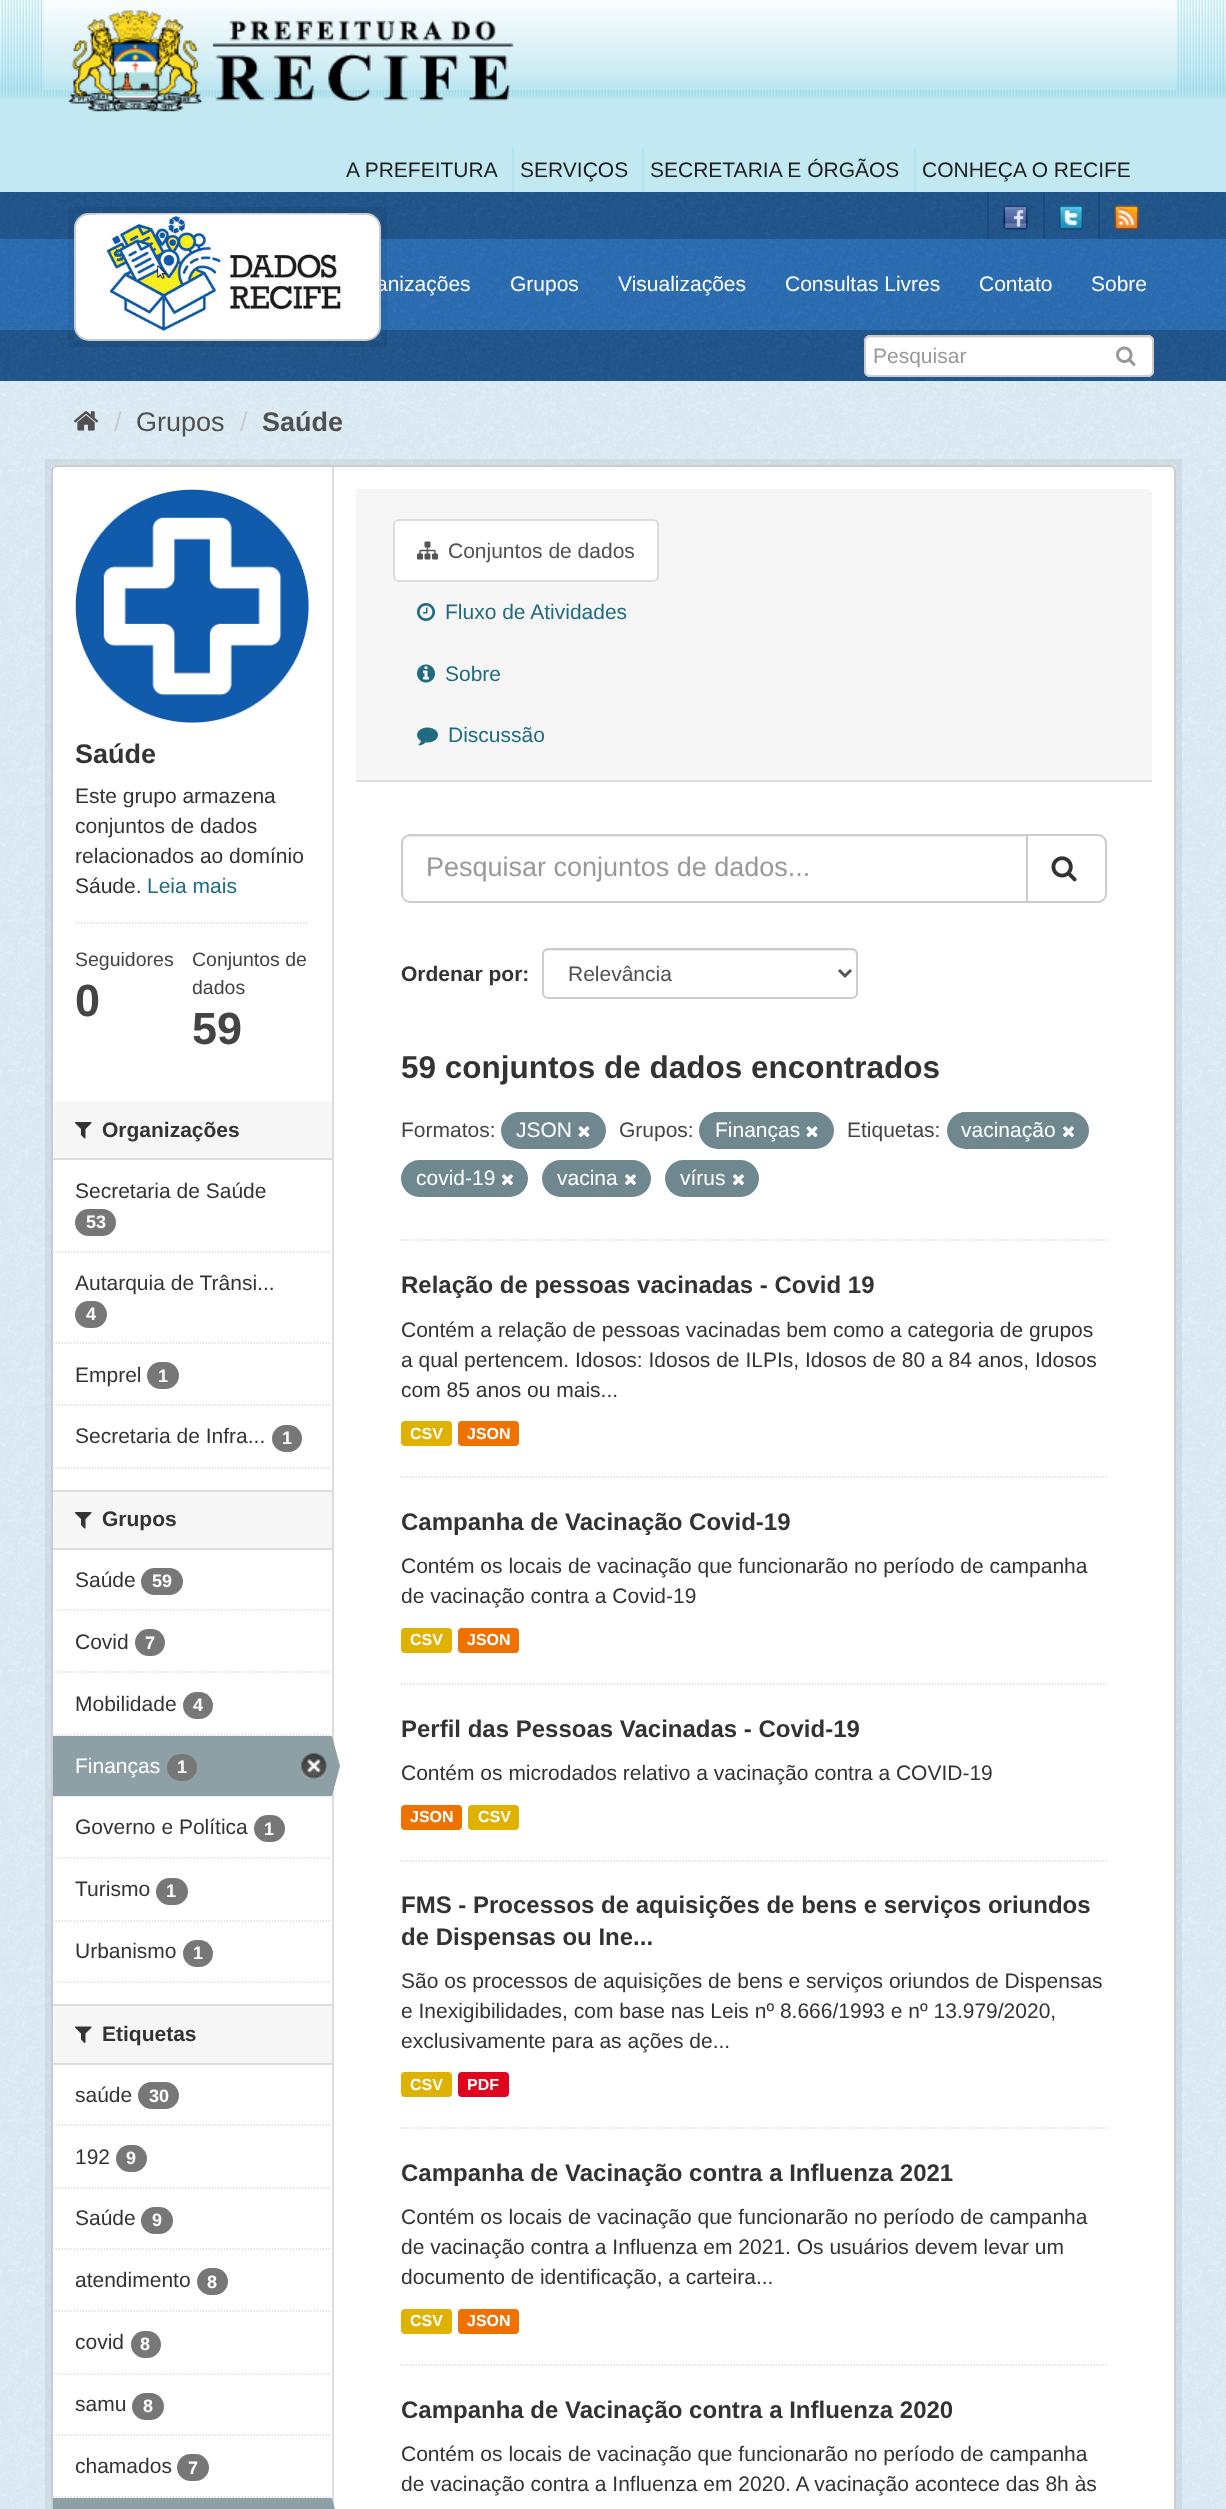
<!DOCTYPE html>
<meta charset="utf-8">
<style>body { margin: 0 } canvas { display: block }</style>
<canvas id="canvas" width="1226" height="2509"></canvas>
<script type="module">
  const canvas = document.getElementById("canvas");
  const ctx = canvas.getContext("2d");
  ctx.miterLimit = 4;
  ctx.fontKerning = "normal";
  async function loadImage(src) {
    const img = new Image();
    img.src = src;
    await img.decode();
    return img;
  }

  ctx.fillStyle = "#c2e8f1";
  ctx.fillRect(0, 0, 1226, 2509);
  ctx.drawImage(await loadImage("img1.png"), 0, 0, 1226, 98);
  ctx.drawImage(await loadImage("img2.png"), 43, 0, 1133, 90);
  ctx.drawImage(await loadImage("img3.png"), 68, 10, 446, 102);
  ctx.font = "21px Liberation Sans";
  ctx.fillStyle = "#1f1f1f";
  ctx.fillText("A PREFEITURA", 346, 177);
  ctx.fillStyle = "#b2e4f0";
  ctx.fillRect(512, 147, 2, 45);
  ctx.fillStyle = "#1f1f1f";
  ctx.fillText("SERVIÇOS", 520, 177);
  ctx.fillStyle = "#b2e4f0";
  ctx.fillRect(642, 147, 2, 45);
  ctx.fillStyle = "#1f1f1f";
  ctx.fillText("SECRETARIA E ÓRGÃOS", 650, 177);
  ctx.fillStyle = "#b2e4f0";
  ctx.fillRect(914, 147, 2, 45);
  ctx.fillStyle = "#1f1f1f";
  ctx.fillText("CONHEÇA O RECIFE", 922, 177);
  ctx.fillStyle = "#22568d";
  ctx.fillRect(0, 192, 1226, 47);
  ctx.drawImage(await loadImage("img4.png"), 0, 192, 1226, 46);
  ctx.fillStyle = "#1d4978";
  ctx.fillRect(987, 192, 2, 47);
  ctx.drawImage(await loadImage("img5.png"), 1003, 205, 25, 25);
  ctx.fillRect(1043, 192, 2, 47);
  ctx.drawImage(await loadImage("img6.png"), 1059, 205, 24, 25);
  ctx.fillRect(1098, 192, 2, 47);
  ctx.drawImage(await loadImage("img7.png"), 1114, 205, 25, 25);
  ctx.fillStyle = "#2c6fb6";
  ctx.fillRect(0, 239, 1226, 91);
  ctx.drawImage(await loadImage("img8.png"), 0, 239, 1226, 91);
  ctx.fillStyle = "#ffffff";
  ctx.fillText("anizações", 376, 291);
  ctx.fillStyle = "#22568d";
  ctx.fillRect(0, 330, 1226, 51);
  ctx.drawImage(await loadImage("img10.png"), 0, 330, 1226, 51);
  ctx.strokeStyle = "rgba(0, 0, 0, 0.05)";
  ctx.lineWidth = 6;
  ctx.strokeRect(71, 210, 313, 134);
  ctx.fillStyle = "#ffffff";
  ctx.beginPath();
  ctx.roundRect(75, 214, 305, 126, 14);
  ctx.fill();
  ctx.strokeStyle = "#cccccc";
  ctx.lineWidth = 2;
  ctx.stroke();
  ctx.drawImage(await loadImage("img9.png"), 96, 214, 254, 118);
  ctx.fillText("Grupos", 510, 291);
  ctx.fillText("Visualizações", 618, 291);
  ctx.fillText("Consultas Livres", 785, 291);
  ctx.fillText("Contato", 979, 291);
  ctx.fillText("Sobre", 1091, 291);
  ctx.beginPath();
  ctx.roundRect(864, 335, 290, 42, 6);
  ctx.fill();
  ctx.fillStyle = "#ececec";
  ctx.beginPath();
  ctx.moveTo(870, 338);
  ctx.lineTo(1148, 338);
  ctx.bezierCurveTo(1150, 338, 1152, 340, 1152, 342);
  ctx.lineTo(1152, 341);
  ctx.bezierCurveTo(1152, 338, 1150, 336, 1147, 336);
  ctx.lineTo(871, 336);
  ctx.bezierCurveTo(868, 336, 866, 338, 866, 341);
  ctx.lineTo(866, 342);
  ctx.bezierCurveTo(866, 340, 868, 338, 870, 338);
  ctx.closePath();
  ctx.fill();
  ctx.beginPath();
  ctx.roundRect(865, 336, 288, 40, 5);
  ctx.stroke();
  ctx.fillStyle = "#999999";
  ctx.fillText("Pesquisar", 873, 363);
  ctx.drawImage(await loadImage("img11.png"), 1116, 346, 20, 20);
  ctx.fillStyle = "#e0f0f9";
  ctx.fillRect(0, 381, 1226, 2128);
  ctx.drawImage(await loadImage("img12.png"), 0, 381, 1226, 2128);
  ctx.drawImage(await loadImage("img13.png"), 74, 411, 25, 20);
  ctx.font = "27px Liberation Sans";
  ctx.fillStyle = "#cccccc";
  ctx.fillText("/", 114, 431);
  ctx.fillStyle = "#505050";
  ctx.fillText("Grupos", 136, 431);
  ctx.fillStyle = "#cccccc";
  ctx.fillText("/", 240, 431);
  ctx.font = "bold 27px Liberation Sans";
  ctx.fillStyle = "#505050";
  ctx.fillText("Saúde", 262, 431);
  ctx.strokeStyle = "rgba(0, 0, 0, 0.05)";
  ctx.lineWidth = 6;
  ctx.strokeRect(48, 462, 1131, 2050);
  ctx.fillStyle = "#ffffff";
  ctx.beginPath();
  ctx.roundRect(52, 466, 1123, 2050, 5);
  ctx.fill();
  ctx.strokeStyle = "#cccccc";
  ctx.lineWidth = 2;
  ctx.stroke();
  ctx.drawImage(await loadImage("img14.png"), 75, 489, 234, 234);
  ctx.fillStyle = "#333333";
  ctx.fillText("Saúde", 75, 763);
  ctx.font = "21px Liberation Sans";
  ctx.fillText("Este grupo armazena", 75, 803);
  ctx.fillText("conjuntos de dados", 75, 833);
  ctx.fillText("relacionados ao domínio", 75, 863);
  ctx.fillText("Sáude.", 75, 893);
  ctx.fillStyle = "#206b82";
  ctx.fillText("Leia mais", 147, 893);
  ctx.beginPath();
  ctx.moveTo(75, 923);
  ctx.lineTo(309, 923);
  ctx.strokeStyle = "#dddddd";
  ctx.lineWidth = 1.5;
  ctx.setLineDash([1.5, 1.5]);
  ctx.stroke();
  ctx.font = "19.5px Liberation Sans";
  ctx.fillStyle = "#444444";
  ctx.fillText("Seguidores", 75, 966);
  ctx.font = "bold 45px Liberation Sans";
  ctx.fillText("0", 75, 1016);
  ctx.font = "19.5px Liberation Sans";
  ctx.fillText("Conjuntos de", 192, 966);
  ctx.fillText("dados", 192, 994);
  ctx.font = "bold 45px Liberation Sans";
  ctx.fillText("59", 192, 1044);
  ctx.fillStyle = "#f6f6f6";
  ctx.beginPath();
  ctx.roundRect(53, 1101, 279, 59, [5, 0, 0, 0]);
  ctx.fill();
  ctx.fillStyle = "#dddddd";
  ctx.fillRect(53, 1158, 279, 2);
  ctx.drawImage(await loadImage("img15.png"), 75, 1122, 17, 17);
  ctx.font = "bold 21px Liberation Sans";
  ctx.fillStyle = "#333333";
  ctx.fillText("Organizações", 102, 1137);
  ctx.beginPath();
  ctx.moveTo(52.5, 1252);
  ctx.lineTo(331.5, 1252);
  ctx.stroke();
  ctx.font = "21px Liberation Sans";
  ctx.fillText("Secretaria de Saúde", 75, 1198);
  ctx.fillStyle = "#777777";
  ctx.beginPath();
  ctx.roundRect(75, 1209, 41, 27, 13.5);
  ctx.fill();
  ctx.font = "bold 18px Liberation Sans";
  ctx.fillStyle = "#ffffff";
  ctx.fillText("53", 86, 1228);
  ctx.beginPath();
  ctx.moveTo(52.5, 1343);
  ctx.lineTo(331.5, 1343);
  ctx.stroke();
  ctx.font = "21px Liberation Sans";
  ctx.fillStyle = "#333333";
  ctx.fillText("Autarquia de Trânsi...", 75, 1290);
  ctx.fillStyle = "#777777";
  ctx.beginPath();
  ctx.roundRect(75, 1301, 32, 27, 13.5);
  ctx.fill();
  ctx.font = "bold 18px Liberation Sans";
  ctx.fillStyle = "#ffffff";
  ctx.fillText("4", 86, 1320);
  ctx.beginPath();
  ctx.moveTo(52.5, 1405);
  ctx.lineTo(331.5, 1405);
  ctx.stroke();
  ctx.font = "21px Liberation Sans";
  ctx.fillStyle = "#333333";
  ctx.fillText("Emprel", 75, 1382);
  ctx.fillStyle = "#777777";
  ctx.beginPath();
  ctx.roundRect(147, 1362, 32, 27, 13.5);
  ctx.fill();
  ctx.font = "bold 18px Liberation Sans";
  ctx.fillStyle = "#ffffff";
  ctx.fillText("1", 158, 1382);
  ctx.font = "21px Liberation Sans";
  ctx.fillStyle = "#333333";
  ctx.fillText("Secretaria de Infra...", 75, 1443);
  ctx.fillStyle = "#777777";
  ctx.beginPath();
  ctx.roundRect(272, 1425, 30, 27, 13.5);
  ctx.fill();
  ctx.font = "bold 18px Liberation Sans";
  ctx.fillStyle = "#ffffff";
  ctx.fillText("1", 282, 1444);
  ctx.beginPath();
  ctx.moveTo(52.5, 1468);
  ctx.lineTo(331.5, 1468);
  ctx.stroke();
  ctx.fillStyle = "#f6f6f6";
  ctx.fillRect(53, 1492, 279, 56);
  ctx.fillStyle = "#dddddd";
  ctx.fillRect(53, 1490, 279, 2);
  ctx.fillRect(53, 1548, 279, 2);
  ctx.drawImage(await loadImage("img15.png"), 75, 1512, 17, 17);
  ctx.font = "bold 21px Liberation Sans";
  ctx.fillStyle = "#333333";
  ctx.fillText("Grupos", 102, 1526);
  ctx.beginPath();
  ctx.moveTo(52.5, 1610);
  ctx.lineTo(331.5, 1610);
  ctx.stroke();
  ctx.font = "21px Liberation Sans";
  ctx.fillText("Saúde", 75, 1587);
  ctx.fillStyle = "#777777";
  ctx.beginPath();
  ctx.roundRect(141, 1568, 42, 27, 13.5);
  ctx.fill();
  ctx.font = "bold 18px Liberation Sans";
  ctx.fillStyle = "#ffffff";
  ctx.fillText("59", 152, 1587);
  ctx.beginPath();
  ctx.moveTo(52.5, 1672);
  ctx.lineTo(331.5, 1672);
  ctx.stroke();
  ctx.font = "21px Liberation Sans";
  ctx.fillStyle = "#333333";
  ctx.fillText("Covid", 75, 1649);
  ctx.fillStyle = "#777777";
  ctx.beginPath();
  ctx.roundRect(135, 1629, 30, 27, 13.5);
  ctx.fill();
  ctx.font = "bold 18px Liberation Sans";
  ctx.fillStyle = "#ffffff";
  ctx.fillText("7", 145, 1649);
  ctx.beginPath();
  ctx.moveTo(52.5, 1735);
  ctx.lineTo(331.5, 1735);
  ctx.stroke();
  ctx.font = "21px Liberation Sans";
  ctx.fillStyle = "#333333";
  ctx.fillText("Mobilidade", 75, 1711);
  ctx.fillStyle = "#777777";
  ctx.beginPath();
  ctx.roundRect(183, 1692, 30, 27, 13.5);
  ctx.fill();
  ctx.font = "bold 18px Liberation Sans";
  ctx.fillStyle = "#ffffff";
  ctx.fillText("4", 193, 1711);
  ctx.fillStyle = "#f6f6f6";
  ctx.fillRect(53, 1796, 279, 1);
  ctx.beginPath();
  ctx.moveTo(52.5, 1796);
  ctx.lineTo(331.5, 1796);
  ctx.stroke();
  ctx.fillStyle = "#8ca0a6";
  ctx.fillRect(53, 1736, 279, 60);
  ctx.font = "21px Liberation Sans";
  ctx.fillStyle = "#ffffff";
  ctx.fillText("Finanças", 75, 1773);
  ctx.fillStyle = "#777777";
  ctx.beginPath();
  ctx.roundRect(167, 1754, 30, 27, 13.5);
  ctx.fill();
  ctx.font = "bold 18px Liberation Sans";
  ctx.fillStyle = "#ffffff";
  ctx.fillText("1", 177, 1773);
  ctx.drawImage(await loadImage("img16.png"), 301, 1753, 26, 26);
  ctx.fillStyle = "#dddddd";
  ctx.fillRect(332, 467, 2, 2042);
  ctx.fillStyle = "#8ca0a6";
  ctx.beginPath();
  ctx.moveTo(332, 1796);
  ctx.lineTo(332, 1736);
  ctx.lineTo(340, 1766);
  ctx.closePath();
  ctx.fill();
  ctx.beginPath();
  ctx.moveTo(52.5, 1858);
  ctx.lineTo(331.5, 1858);
  ctx.stroke();
  ctx.font = "21px Liberation Sans";
  ctx.fillStyle = "#333333";
  ctx.fillText("Governo e Política", 75, 1834);
  ctx.fillStyle = "#777777";
  ctx.beginPath();
  ctx.roundRect(254, 1815, 31, 27, 13.5);
  ctx.fill();
  ctx.font = "bold 18px Liberation Sans";
  ctx.fillStyle = "#ffffff";
  ctx.fillText("1", 264, 1835);
  ctx.beginPath();
  ctx.moveTo(52.5, 1921);
  ctx.lineTo(331.5, 1921);
  ctx.stroke();
  ctx.font = "21px Liberation Sans";
  ctx.fillStyle = "#333333";
  ctx.fillText("Turismo", 75, 1896);
  ctx.fillStyle = "#777777";
  ctx.beginPath();
  ctx.roundRect(156, 1878, 32, 27, 13.5);
  ctx.fill();
  ctx.font = "bold 18px Liberation Sans";
  ctx.fillStyle = "#ffffff";
  ctx.fillText("1", 166, 1897);
  ctx.font = "21px Liberation Sans";
  ctx.fillStyle = "#333333";
  ctx.fillText("Urbanismo", 75, 1958);
  ctx.fillStyle = "#777777";
  ctx.beginPath();
  ctx.roundRect(183, 1940, 30, 27, 13.5);
  ctx.fill();
  ctx.font = "bold 18px Liberation Sans";
  ctx.fillStyle = "#ffffff";
  ctx.fillText("1", 193, 1959);
  ctx.beginPath();
  ctx.moveTo(52.5, 1982);
  ctx.lineTo(331.5, 1982);
  ctx.stroke();
  ctx.fillStyle = "#f6f6f6";
  ctx.fillRect(53, 2006, 279, 57);
  ctx.fillStyle = "#dddddd";
  ctx.fillRect(53, 2004, 279, 2);
  ctx.fillRect(53, 2063, 279, 2);
  ctx.drawImage(await loadImage("img17.png"), 75, 2026, 17, 17);
  ctx.font = "bold 21px Liberation Sans";
  ctx.fillStyle = "#333333";
  ctx.fillText("Etiquetas", 102, 2041);
  ctx.beginPath();
  ctx.moveTo(52.5, 2125);
  ctx.lineTo(331.5, 2125);
  ctx.stroke();
  ctx.font = "21px Liberation Sans";
  ctx.fillText("saúde", 75, 2102);
  ctx.fillStyle = "#777777";
  ctx.beginPath();
  ctx.roundRect(138, 2082, 41, 27, 13.5);
  ctx.fill();
  ctx.font = "bold 18px Liberation Sans";
  ctx.fillStyle = "#ffffff";
  ctx.fillText("30", 149, 2102);
  ctx.beginPath();
  ctx.moveTo(52.5, 2188);
  ctx.lineTo(331.5, 2188);
  ctx.stroke();
  ctx.font = "21px Liberation Sans";
  ctx.fillStyle = "#333333";
  ctx.fillText("192", 75, 2164);
  ctx.fillStyle = "#777777";
  ctx.beginPath();
  ctx.roundRect(116, 2145, 31, 27, 13.5);
  ctx.fill();
  ctx.font = "bold 18px Liberation Sans";
  ctx.fillStyle = "#ffffff";
  ctx.fillText("9", 126, 2164);
  ctx.beginPath();
  ctx.moveTo(52.5, 2249);
  ctx.lineTo(331.5, 2249);
  ctx.stroke();
  ctx.font = "21px Liberation Sans";
  ctx.fillStyle = "#333333";
  ctx.fillText("Saúde", 75, 2225);
  ctx.fillStyle = "#777777";
  ctx.beginPath();
  ctx.roundRect(141, 2207, 32, 27, 13.5);
  ctx.fill();
  ctx.font = "bold 18px Liberation Sans";
  ctx.fillStyle = "#ffffff";
  ctx.fillText("9", 152, 2226);
  ctx.beginPath();
  ctx.moveTo(52.5, 2311);
  ctx.lineTo(331.5, 2311);
  ctx.stroke();
  ctx.font = "21px Liberation Sans";
  ctx.fillStyle = "#333333";
  ctx.fillText("atendimento", 75, 2287);
  ctx.fillStyle = "#777777";
  ctx.beginPath();
  ctx.roundRect(197, 2268, 31, 27, 13.5);
  ctx.fill();
  ctx.font = "bold 18px Liberation Sans";
  ctx.fillStyle = "#ffffff";
  ctx.fillText("8", 207, 2288);
  ctx.beginPath();
  ctx.moveTo(52.5, 2374);
  ctx.lineTo(331.5, 2374);
  ctx.stroke();
  ctx.font = "21px Liberation Sans";
  ctx.fillStyle = "#333333";
  ctx.fillText("covid", 75, 2349);
  ctx.fillStyle = "#777777";
  ctx.beginPath();
  ctx.roundRect(131, 2331, 30, 27, 13.5);
  ctx.fill();
  ctx.font = "bold 18px Liberation Sans";
  ctx.fillStyle = "#ffffff";
  ctx.fillText("8", 140, 2350);
  ctx.beginPath();
  ctx.moveTo(52.5, 2435);
  ctx.lineTo(331.5, 2435);
  ctx.stroke();
  ctx.font = "21px Liberation Sans";
  ctx.fillStyle = "#333333";
  ctx.fillText("samu", 75, 2411);
  ctx.fillStyle = "#777777";
  ctx.beginPath();
  ctx.roundRect(132, 2393, 32, 27, 13.5);
  ctx.fill();
  ctx.font = "bold 18px Liberation Sans";
  ctx.fillStyle = "#ffffff";
  ctx.fillText("8", 143, 2412);
  ctx.beginPath();
  ctx.moveTo(52.5, 2497);
  ctx.lineTo(331.5, 2497);
  ctx.stroke();
  ctx.font = "21px Liberation Sans";
  ctx.fillStyle = "#333333";
  ctx.fillText("chamados", 75, 2473);
  ctx.fillStyle = "#777777";
  ctx.beginPath();
  ctx.roundRect(177, 2454, 32, 27, 13.5);
  ctx.fill();
  ctx.font = "bold 18px Liberation Sans";
  ctx.fillStyle = "#ffffff";
  ctx.fillText("7", 188, 2474);
  ctx.fillStyle = "#8ca0a6";
  ctx.fillRect(53, 2498, 279, 11);
  ctx.beginPath();
  ctx.moveTo(332, 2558);
  ctx.lineTo(332, 2498);
  ctx.lineTo(340, 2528);
  ctx.closePath();
  ctx.fill();
  ctx.fillStyle = "#f6f6f6";
  ctx.beginPath();
  ctx.roundRect(356, 489, 796, 293, [0, 5, 0, 0]);
  ctx.fill();
  ctx.fillStyle = "#dddddd";
  ctx.fillRect(356, 780, 796, 2);
  ctx.fillStyle = "#ffffff";
  ctx.beginPath();
  ctx.roundRect(394, 520, 264, 61, 5);
  ctx.fill();
  ctx.lineWidth = 2;
  ctx.setLineDash([]);
  ctx.stroke();
  ctx.drawImage(await loadImage("img18.png"), 417, 541, 21, 19);
  ctx.font = "21px Liberation Sans";
  ctx.fillStyle = "#505050";
  ctx.fillText("Conjuntos de dados", 448, 558);
  ctx.drawImage(await loadImage("img19.png"), 417, 603, 18, 18);
  ctx.fillStyle = "#206b82";
  ctx.fillText("Fluxo de Atividades", 445, 619);
  ctx.drawImage(await loadImage("img20.png"), 417, 664, 18, 19);
  ctx.fillText("Sobre", 445, 681);
  ctx.drawImage(await loadImage("img21.png"), 417, 727, 21, 19);
  ctx.fillText("Discussão", 448, 742);
  ctx.beginPath();
  ctx.moveTo(400.5, 1240);
  ctx.lineTo(1107, 1240);
  ctx.lineWidth = 1.5;
  ctx.setLineDash([1.5, 1.5]);
  ctx.stroke();
  ctx.fillStyle = "#ececec";
  ctx.beginPath();
  ctx.moveTo(410, 837);
  ctx.lineTo(1026, 837);
  ctx.lineTo(1026, 836);
  ctx.lineTo(410, 836);
  ctx.bezierCurveTo(406, 836, 402, 840, 402, 844);
  ctx.bezierCurveTo(402, 840, 405, 837, 410, 837);
  ctx.closePath();
  ctx.fill();
  ctx.beginPath();
  ctx.roundRect(402, 835, 625, 67, [8, 0, 0, 8]);
  ctx.strokeStyle = "#cccccc";
  ctx.lineWidth = 2;
  ctx.setLineDash([]);
  ctx.stroke();
  ctx.font = "27px Liberation Sans";
  ctx.fillStyle = "#999999";
  ctx.fillText("Pesquisar conjuntos de dados...", 426, 876);
  ctx.fillStyle = "#ffffff";
  ctx.beginPath();
  ctx.roundRect(1027, 835, 79, 67, [0, 8, 8, 0]);
  ctx.fill();
  ctx.stroke();
  ctx.drawImage(await loadImage("img22.png"), 1051, 856, 26, 26);
  ctx.font = "bold 21px Liberation Sans";
  ctx.fillStyle = "#333333";
  ctx.fillText("Ordenar por:", 401, 981);
  ctx.fillStyle = "#ececec";
  ctx.beginPath();
  ctx.moveTo(548, 951);
  ctx.lineTo(852, 951);
  ctx.bezierCurveTo(854, 951, 856, 953, 856, 956);
  ctx.lineTo(856, 994);
  ctx.lineTo(855, 997);
  ctx.bezierCurveTo(856, 996, 857, 994, 857, 993);
  ctx.lineTo(857, 955);
  ctx.bezierCurveTo(857, 952, 855, 950, 852, 950);
  ctx.lineTo(548, 950);
  ctx.bezierCurveTo(545, 950, 543, 952, 543, 955);
  ctx.lineTo(543, 956);
  ctx.bezierCurveTo(543, 953, 545, 951, 548, 951);
  ctx.closePath();
  ctx.fill();
  ctx.beginPath();
  ctx.roundRect(543, 949, 314, 49, 5);
  ctx.stroke();
  ctx.beginPath();
  ctx.moveTo(839, 970);
  ctx.lineTo(845, 976);
  ctx.lineTo(851, 970);
  ctx.strokeStyle = "#555555";
  ctx.lineWidth = 3;
  ctx.stroke();
  ctx.font = "21px Liberation Sans";
  ctx.fillStyle = "#505050";
  ctx.fillText("Relevância", 568, 981);
  ctx.font = "bold 31.5px Liberation Sans";
  ctx.fillStyle = "#333333";
  ctx.fillText("59 conjuntos de dados encontrados", 401, 1078);
  ctx.font = "21px Liberation Sans";
  ctx.fillStyle = "#444444";
  ctx.fillText("Formatos:", 401, 1137);
  ctx.fillStyle = "#6f8890";
  ctx.beginPath();
  ctx.roundRect(501, 1112, 105, 37, 18.5);
  ctx.fill();
  ctx.fillStyle = "#ffffff";
  ctx.fillText("JSON", 516, 1137);
  ctx.drawImage(await loadImage("img23.png"), 578, 1126, 12, 12);
  ctx.fillStyle = "#444444";
  ctx.fillText("Grupos:", 619, 1137);
  ctx.fillStyle = "#6f8890";
  ctx.beginPath();
  ctx.roundRect(699, 1112, 135, 37, 18.5);
  ctx.fill();
  ctx.fillStyle = "#ffffff";
  ctx.fillText("Finanças", 715, 1137);
  ctx.drawImage(await loadImage("img23.png"), 806, 1126, 12, 12);
  ctx.fillStyle = "#444444";
  ctx.fillText("Etiquetas:", 847, 1137);
  ctx.fillStyle = "#6f8890";
  ctx.beginPath();
  ctx.roundRect(947, 1112, 142, 37, 18.5);
  ctx.fill();
  ctx.fillStyle = "#ffffff";
  ctx.fillText("vacinação", 961, 1137);
  ctx.drawImage(await loadImage("img24.png"), 1063, 1126, 11, 12);
  ctx.fillStyle = "#6f8890";
  ctx.beginPath();
  ctx.roundRect(401, 1160, 127, 37, 18.5);
  ctx.fill();
  ctx.fillStyle = "#ffffff";
  ctx.fillText("covid-19", 416, 1185);
  ctx.drawImage(await loadImage("img24.png"), 502, 1174, 11, 12);
  ctx.fillStyle = "#6f8890";
  ctx.beginPath();
  ctx.roundRect(542, 1160, 109, 37, 18.5);
  ctx.fill();
  ctx.fillStyle = "#ffffff";
  ctx.fillText("vacina", 557, 1185);
  ctx.drawImage(await loadImage("img24.png"), 625, 1174, 11, 12);
  ctx.fillStyle = "#6f8890";
  ctx.beginPath();
  ctx.roundRect(665, 1160, 94, 37, 18.5);
  ctx.fill();
  ctx.fillStyle = "#ffffff";
  ctx.fillText("vírus", 680, 1185);
  ctx.drawImage(await loadImage("img24.png"), 733, 1174, 11, 12);
  ctx.beginPath();
  ctx.moveTo(400.5, 1477);
  ctx.lineTo(1107, 1477);
  ctx.strokeStyle = "#dddddd";
  ctx.lineWidth = 1.5;
  ctx.setLineDash([1.5, 1.5]);
  ctx.stroke();
  ctx.font = "bold 24px Liberation Sans";
  ctx.fillStyle = "#333333";
  ctx.fillText("Relação de pessoas vacinadas - Covid 19", 401, 1293);
  ctx.font = "21px Liberation Sans";
  ctx.fillText("Contém a relação de pessoas vacinadas bem como a categoria de grupos", 401, 1337);
  ctx.fillText("a qual pertencem. Idosos: Idosos de ILPIs, Idosos de 80 a 84 anos, Idosos", 401, 1367);
  ctx.fillText("com 85 anos ou mais...", 401, 1397);
  ctx.fillStyle = "#dfb100";
  ctx.beginPath();
  ctx.roundRect(401, 1421, 51, 25, 4);
  ctx.fill();
  ctx.font = "bold 16px Liberation Sans";
  ctx.fillStyle = "#ffffff";
  ctx.fillText("CSV", 410, 1439);
  ctx.fillStyle = "#ef7100";
  ctx.beginPath();
  ctx.roundRect(458, 1421, 61, 25, 4);
  ctx.fill();
  ctx.fillStyle = "#ffffff";
  ctx.fillText("JSON", 467, 1439);
  ctx.beginPath();
  ctx.moveTo(400.5, 1684);
  ctx.lineTo(1107, 1684);
  ctx.stroke();
  ctx.font = "bold 24px Liberation Sans";
  ctx.fillStyle = "#333333";
  ctx.fillText("Campanha de Vacinação Covid-19", 401, 1530);
  ctx.font = "21px Liberation Sans";
  ctx.fillText("Contém os locais de vacinação que funcionarão no período de campanha", 401, 1573);
  ctx.fillText("de vacinação contra a Covid-19", 401, 1603);
  ctx.fillStyle = "#dfb100";
  ctx.beginPath();
  ctx.roundRect(401, 1628, 51, 25, 4);
  ctx.fill();
  ctx.font = "bold 16px Liberation Sans";
  ctx.fillStyle = "#ffffff";
  ctx.fillText("CSV", 410, 1645);
  ctx.fillStyle = "#ef7100";
  ctx.beginPath();
  ctx.roundRect(458, 1628, 61, 25, 4);
  ctx.fill();
  ctx.fillStyle = "#ffffff";
  ctx.fillText("JSON", 467, 1645);
  ctx.beginPath();
  ctx.moveTo(400.5, 1861);
  ctx.lineTo(1107, 1861);
  ctx.stroke();
  ctx.font = "bold 24px Liberation Sans";
  ctx.fillStyle = "#333333";
  ctx.fillText("Perfil das Pessoas Vacinadas - Covid-19", 401, 1737);
  ctx.font = "21px Liberation Sans";
  ctx.fillText("Contém os microdados relativo a vacinação contra a COVID-19", 401, 1780);
  ctx.fillStyle = "#ef7100";
  ctx.beginPath();
  ctx.roundRect(401, 1805, 61, 25, 4);
  ctx.fill();
  ctx.font = "bold 16px Liberation Sans";
  ctx.fillStyle = "#ffffff";
  ctx.fillText("JSON", 410, 1822);
  ctx.fillStyle = "#dfb100";
  ctx.beginPath();
  ctx.roundRect(468, 1805, 51, 25, 4);
  ctx.fill();
  ctx.fillStyle = "#ffffff";
  ctx.fillText("CSV", 478, 1822);
  ctx.beginPath();
  ctx.moveTo(400.5, 2128);
  ctx.lineTo(1107, 2128);
  ctx.stroke();
  ctx.font = "bold 24px Liberation Sans";
  ctx.fillStyle = "#333333";
  ctx.fillText("FMS - Processos de aquisições de bens e serviços oriundos", 401, 1913);
  ctx.fillText("de Dispensas ou Ine...", 401, 1945);
  ctx.font = "21px Liberation Sans";
  ctx.fillText("São os processos de aquisições de bens e serviços oriundos de Dispensas", 401, 1988);
  ctx.fillText("e Inexigibilidades, com base nas Leis nº 8.666/1993 e nº 13.979/2020,", 401, 2018);
  ctx.fillText("exclusivamente para as ações de...", 401, 2048);
  ctx.fillStyle = "#dfb100";
  ctx.beginPath();
  ctx.roundRect(401, 2072, 51, 25, 4);
  ctx.fill();
  ctx.font = "bold 16px Liberation Sans";
  ctx.fillStyle = "#ffffff";
  ctx.fillText("CSV", 410, 2090);
  ctx.fillStyle = "#e0051e";
  ctx.beginPath();
  ctx.roundRect(458, 2072, 51, 25, 4);
  ctx.fill();
  ctx.fillStyle = "#ffffff";
  ctx.fillText("PDF", 467, 2090);
  ctx.beginPath();
  ctx.moveTo(400.5, 2365);
  ctx.lineTo(1107, 2365);
  ctx.stroke();
  ctx.font = "bold 24px Liberation Sans";
  ctx.fillStyle = "#333333";
  ctx.fillText("Campanha de Vacinação contra a Influenza 2021", 401, 2181);
  ctx.font = "21px Liberation Sans";
  ctx.fillText("Contém os locais de vacinação que funcionarão no período de campanha", 401, 2224);
  ctx.fillText("de vacinação contra a Influenza em 2021. Os usuários devem levar um", 401, 2254);
  ctx.fillText("documento de identificação, a carteira...", 401, 2284);
  ctx.fillStyle = "#dfb100";
  ctx.beginPath();
  ctx.roundRect(401, 2309, 51, 25, 4);
  ctx.fill();
  ctx.font = "bold 16px Liberation Sans";
  ctx.fillStyle = "#ffffff";
  ctx.fillText("CSV", 410, 2326);
  ctx.fillStyle = "#ef7100";
  ctx.beginPath();
  ctx.roundRect(458, 2309, 61, 25, 4);
  ctx.fill();
  ctx.fillStyle = "#ffffff";
  ctx.fillText("JSON", 467, 2326);
  ctx.font = "bold 24px Liberation Sans";
  ctx.fillStyle = "#333333";
  ctx.fillText("Campanha de Vacinação contra a Influenza 2020", 401, 2418);
  ctx.font = "21px Liberation Sans";
  ctx.fillText("Contém os locais de vacinação que funcionarão no período de campanha", 401, 2461);
  ctx.fillText("de vacinação contra a Influenza em 2020. A vacinação acontece das 8h às", 401, 2491);
</script>
